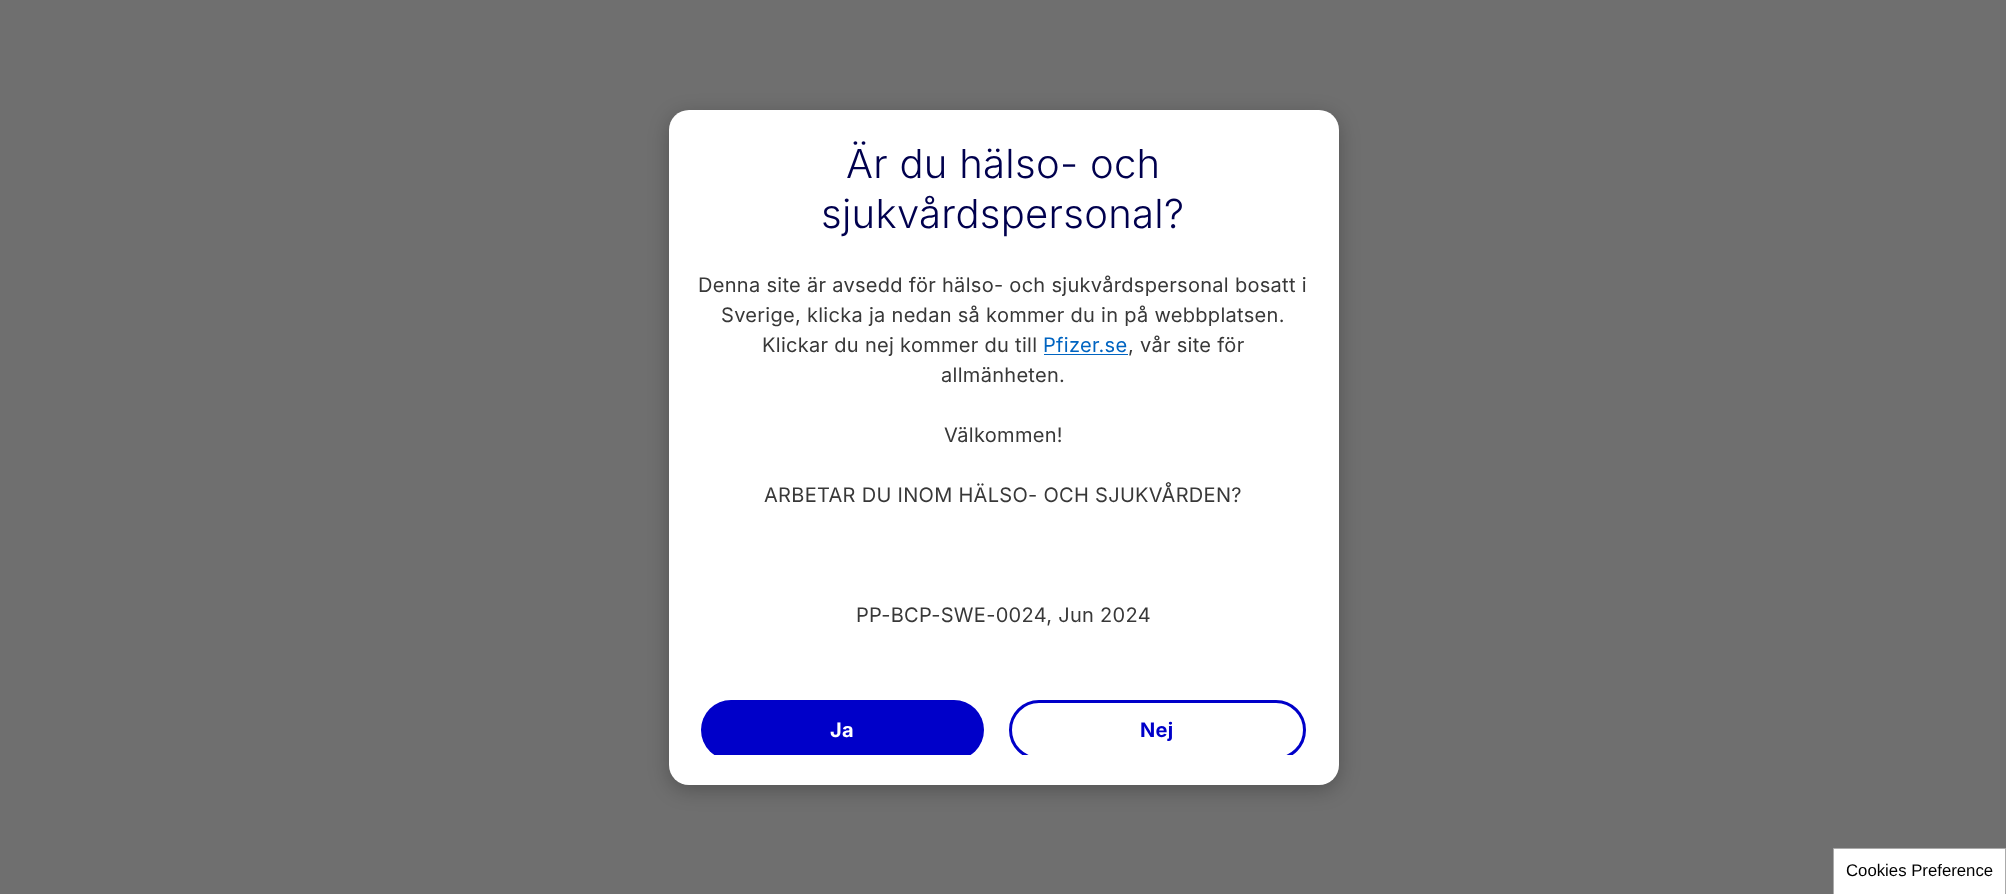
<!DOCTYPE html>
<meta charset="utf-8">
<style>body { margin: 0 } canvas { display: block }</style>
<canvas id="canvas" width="2006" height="894"></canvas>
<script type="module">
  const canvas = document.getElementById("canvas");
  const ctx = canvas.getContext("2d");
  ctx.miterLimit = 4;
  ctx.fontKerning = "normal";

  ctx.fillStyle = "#6f6f6f";
  ctx.fillRect(0, 0, 2006, 894);
  ctx.fillStyle = "rgba(0, 0, 0, 0.25)";
  ctx.filter = "blur(10px)";
  ctx.beginPath();
  ctx.roundRect(669, 115, 670, 675, 20);
  ctx.fill();
  ctx.filter = "none";
  ctx.fillStyle = "#ffffff";
  ctx.beginPath();
  ctx.roundRect(669, 110, 670, 675, 20);
  ctx.fill();
  ctx.letterSpacing = "0.3px";
  ctx.font = "300 40px Inter";
  ctx.fillStyle = "#00004e";
  ctx.fillText("Är du hälso- och", 846, 178);
  ctx.fillText("sjukvårdspersonal?", 821, 228);
  ctx.font = "20px Inter";
  ctx.fillStyle = "#383838";
  ctx.fillText("Denna site är avsedd för hälso- och sjukvårdspersonal bosatt i", 698, 292);
  ctx.fillText("Sverige, klicka ja nedan så kommer du in på webbplatsen.", 721, 322);
  ctx.fillText("Klickar du nej kommer du till", 762, 352);
  ctx.fillStyle = "#0064c1";
  ctx.fillText("Pfizer.se", 1043, 352);
  ctx.fillRect(1044, 354, 84, 1);
  ctx.fillStyle = "#383838";
  ctx.fillText(", vår site för", 1128, 352);
  ctx.fillText("allmänheten.", 941, 382);
  ctx.fillText("Välkommen!", 944, 442);
  ctx.fillText("ARBETAR DU INOM HÄLSO- OCH SJUKVÅRDEN?", 764, 502);
  ctx.fillText("PP-BCP-SWE-0024, Jun 2024", 856, 622);
  ctx.save();
  ctx.beginPath();
  ctx.rect(689, 140, 630, 615);
  ctx.clip();
  ctx.fillStyle = "#0000c9";
  ctx.beginPath();
  ctx.roundRect(701, 700, 283, 60, 30);
  ctx.fill();
  ctx.restore();
  ctx.font = "bold 20px Inter";
  ctx.fillStyle = "#ffffff";
  ctx.fillText("Ja", 830, 737);
  ctx.save();
  ctx.beginPath();
  ctx.rect(689, 140, 630, 615);
  ctx.clip();
  ctx.beginPath();
  ctx.roundRect(1010.5, 701.5, 294, 57, 28.5);
  ctx.strokeStyle = "#0000c9";
  ctx.lineWidth = 3;
  ctx.stroke();
  ctx.restore();
  ctx.fillStyle = "#0000c9";
  ctx.fillText("Nej", 1140, 737);
  ctx.fillStyle = "#ffffff";
  ctx.beginPath();
  ctx.rect(1833.5, 848.5, 172, 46);
  ctx.fill();
  ctx.strokeStyle = "#aaaaaa";
  ctx.stroke();
  ctx.letterSpacing = "0px";
  ctx.font = "16.75px Liberation Sans";
  ctx.fillStyle = "#000000";
  ctx.fillText("Cookies Preference", 1846, 876);
</script>
